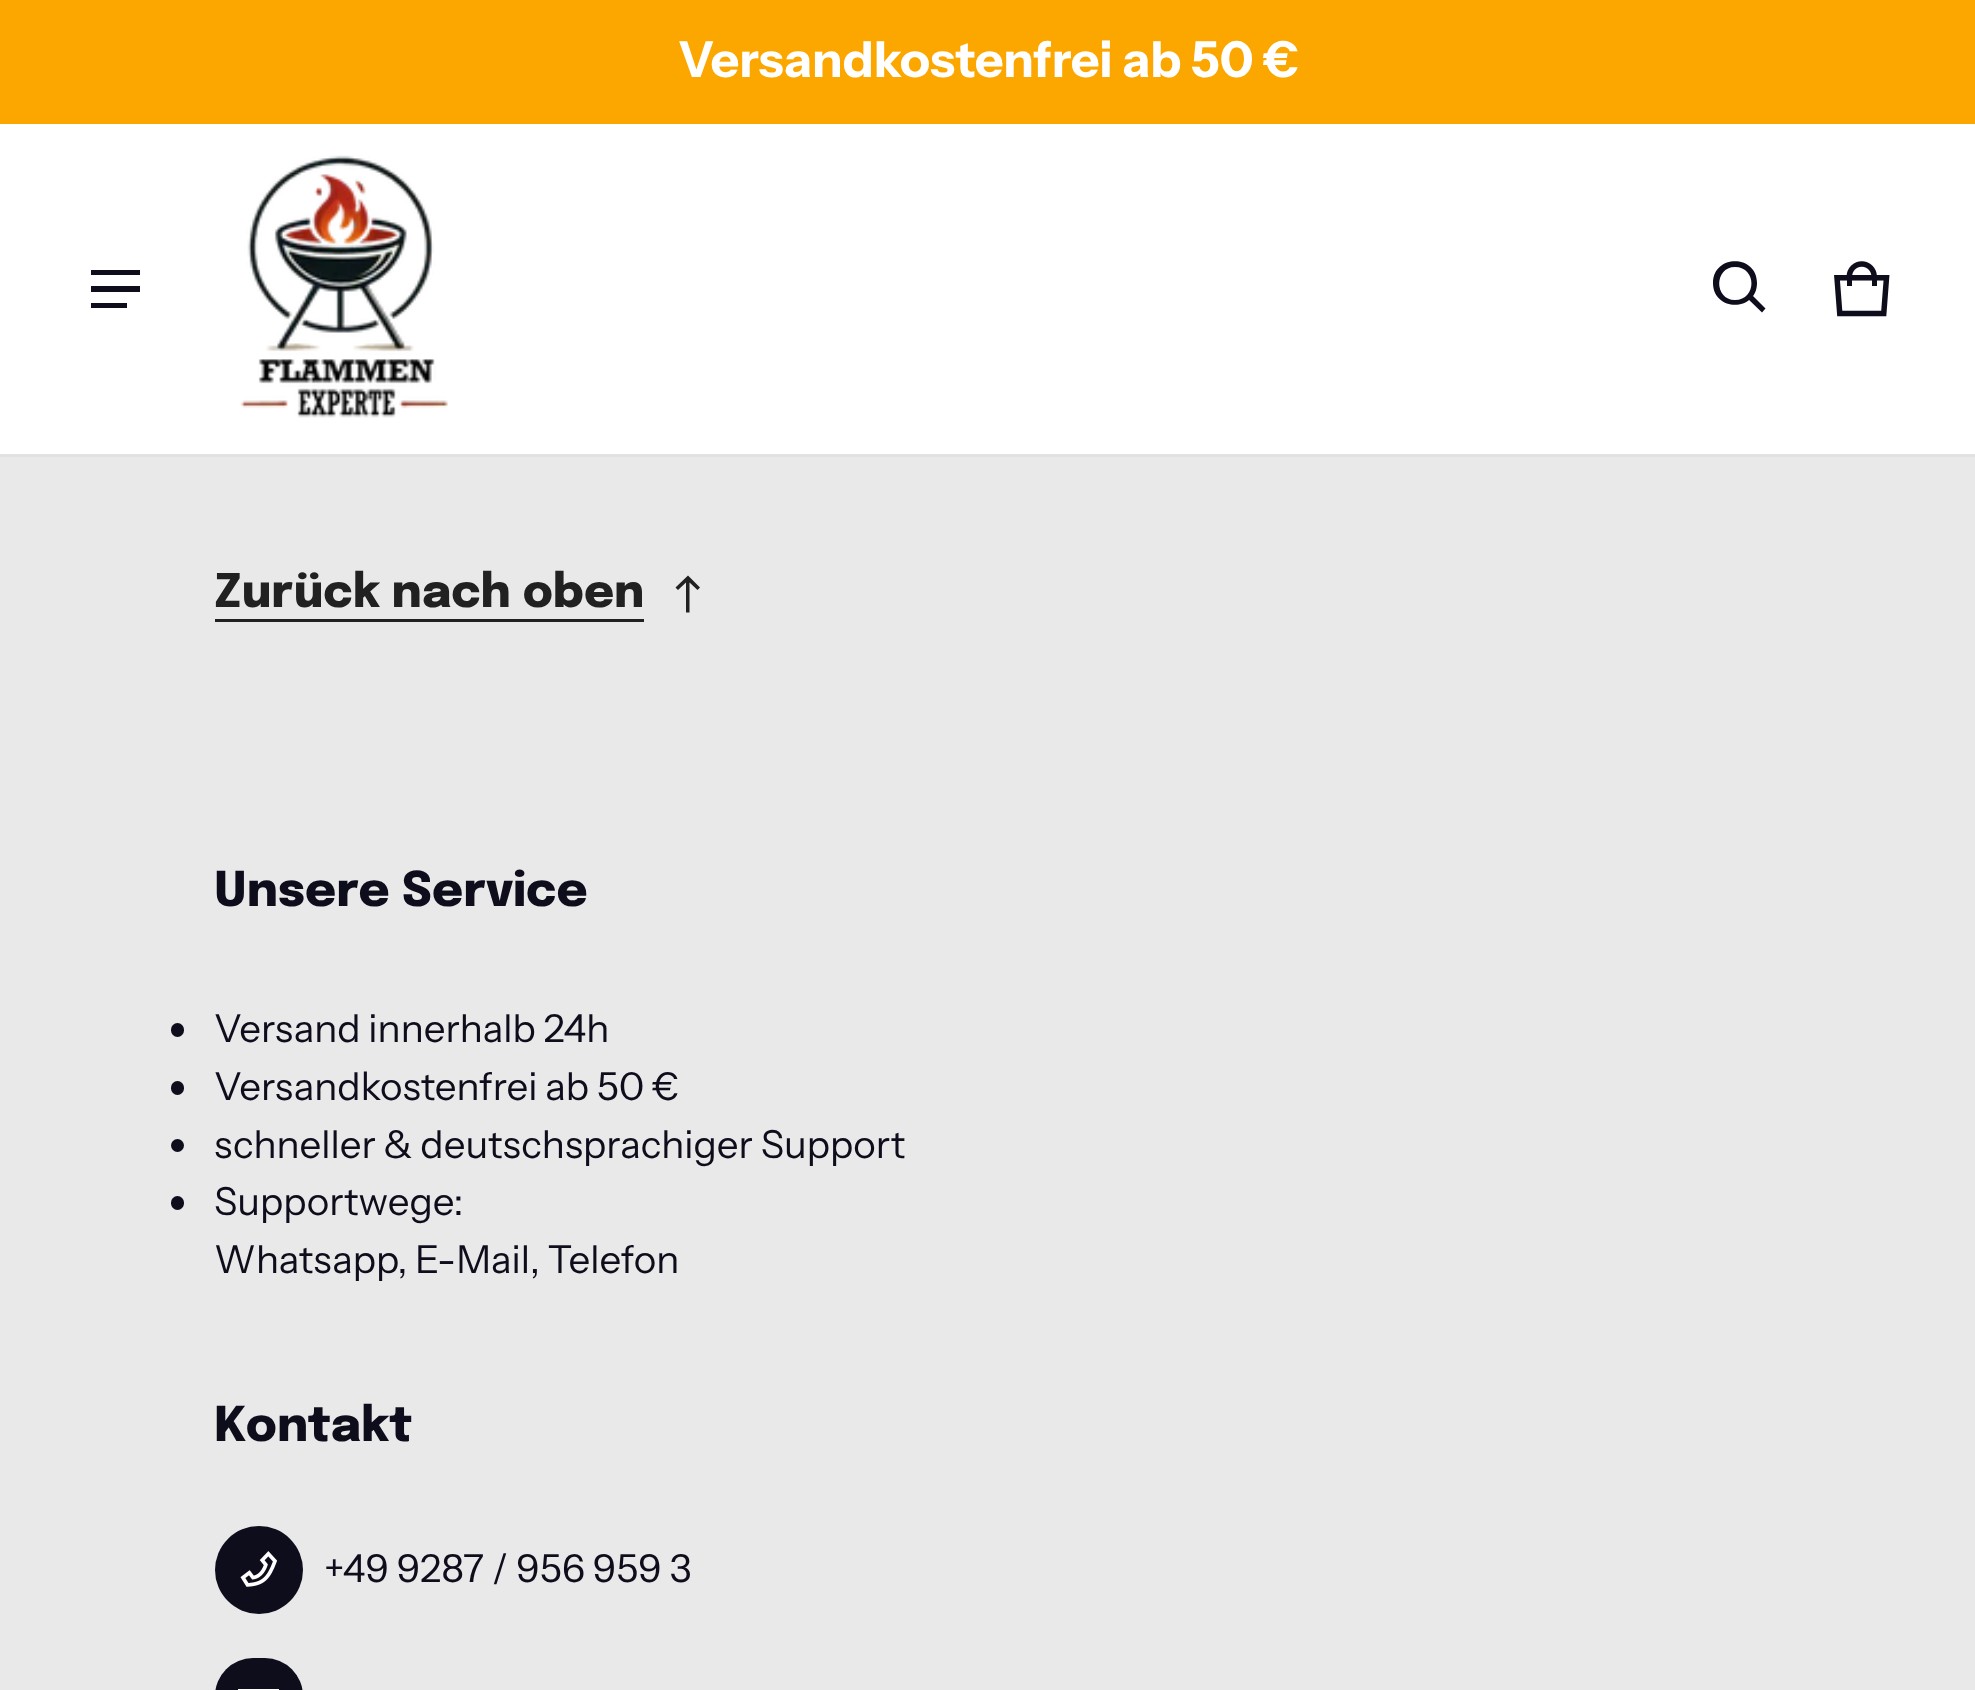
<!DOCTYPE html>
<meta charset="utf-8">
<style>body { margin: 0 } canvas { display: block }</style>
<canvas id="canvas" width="1975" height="1690"></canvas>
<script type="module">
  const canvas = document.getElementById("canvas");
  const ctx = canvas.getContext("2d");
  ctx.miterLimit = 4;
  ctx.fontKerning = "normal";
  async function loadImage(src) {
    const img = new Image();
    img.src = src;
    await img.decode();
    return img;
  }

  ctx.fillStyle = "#ffffff";
  ctx.fillRect(0, 0, 1975, 1690);
  ctx.fillStyle = "#fca600";
  ctx.fillRect(0, 0, 1975, 124);
  ctx.font = "bold 49.5px Instrument Sans";
  ctx.fillStyle = "#ffffff";
  ctx.fillText("Versandkostenfrei ab 50 €", 678, 77);
  ctx.fillStyle = "#e2e2e4";
  ctx.fillRect(0, 454, 1975, 3);
  ctx.fillStyle = "#0e0d1c";
  ctx.fillRect(91, 270, 49, 5);
  ctx.fillRect(91, 286, 49, 6);
  ctx.fillRect(91, 303, 36, 5);
  ctx.drawImage(await loadImage("img1.png"), 240, 155, 208, 263);
  ctx.beginPath();
  ctx.moveTo(1735, 267);
  ctx.bezierCurveTo(1714, 267, 1714, 300, 1735, 300);
  ctx.bezierCurveTo(1757, 300, 1757, 267, 1735, 267);
  ctx.closePath();
  ctx.moveTo(1713, 283);
  ctx.bezierCurveTo(1713, 254, 1757, 254, 1757, 283);
  ctx.bezierCurveTo(1757, 312, 1713, 312, 1713, 283);
  ctx.closePath();
  ctx.fill("evenodd");
  ctx.beginPath();
  ctx.moveTo(1762, 312.5);
  ctx.lineTo(1746, 297);
  ctx.lineTo(1750, 293);
  ctx.lineTo(1765.5, 308.5);
  ctx.closePath();
  ctx.fill("evenodd");
  ctx.drawImage(await loadImage("img2.png"), 1834, 261, 56, 56);
  ctx.fillStyle = "#e9e9e9";
  ctx.fillRect(0, 457, 1975, 1233);
  ctx.font = "800 46.25px Epilogue";
  ctx.fillStyle = "#212121";
  ctx.fillText("Zurück nach oben", 214, 607);
  ctx.fillRect(215, 619, 429, 3);
  ctx.beginPath();
  ctx.moveTo(700, 587.5);
  ctx.lineTo(697.5, 590);
  ctx.lineTo(689.5, 582.5);
  ctx.lineTo(689.5, 612.5);
  ctx.lineTo(686, 612.5);
  ctx.lineTo(686, 582.5);
  ctx.lineTo(678, 590);
  ctx.lineTo(675.5, 587.5);
  ctx.lineTo(688, 575.5);
  ctx.closePath();
  ctx.fill();
  ctx.font = "800 47.75px Epilogue";
  ctx.fillStyle = "#0e0d1c";
  ctx.fillText("Unsere Service", 214, 906);
  ctx.beginPath();
  ctx.roundRect(171, 1023, 13, 14, 6.5);
  ctx.fill();
  ctx.font = "38.5px Instrument Sans";
  ctx.fillText("Versand innerhalb 24h", 214, 1042);
  ctx.beginPath();
  ctx.roundRect(171, 1081, 13, 14, 6.5);
  ctx.fill();
  ctx.fillText("Versandkostenfrei ab 50 €", 214, 1100);
  ctx.beginPath();
  ctx.arc(177.5, 1145.5, 6.5, 0, Math.PI * 2);
  ctx.fill();
  ctx.fillText("schneller & deutschsprachiger Support", 214, 1158);
  ctx.beginPath();
  ctx.roundRect(171, 1196, 13, 14, 6.5);
  ctx.fill();
  ctx.fillText("Supportwege:", 214, 1215);
  ctx.fillText("Whatsapp, E-Mail, Telefon", 214, 1273);
  ctx.font = "800 47.75px Epilogue";
  ctx.fillText("Kontakt", 214, 1441);
  ctx.beginPath();
  ctx.arc(259, 1570, 44, 0, Math.PI * 2);
  ctx.fill();
  ctx.drawImage(await loadImage("img3.png"), 240, 1551, 37, 36);
  ctx.font = "38.5px Instrument Sans";
  ctx.fillText("+49 9287 / 956 959 3", 324, 1582);
  ctx.beginPath();
  ctx.roundRect(215, 1658, 88, 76, 44);
  ctx.fill();
  ctx.fillStyle = "#ffffff";
  ctx.beginPath();
  ctx.moveTo(238, 1689);
  ctx.lineTo(279, 1689);
  ctx.lineTo(279, 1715);
  ctx.lineTo(238, 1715);
  ctx.closePath();
  ctx.moveTo(246, 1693);
  ctx.lineTo(258, 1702);
  ctx.lineTo(271, 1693);
  ctx.closePath();
  ctx.moveTo(275, 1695);
  ctx.lineTo(258, 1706);
  ctx.lineTo(242, 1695);
  ctx.lineTo(242, 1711);
  ctx.lineTo(275, 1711);
  ctx.closePath();
  ctx.fill("evenodd");
</script>
